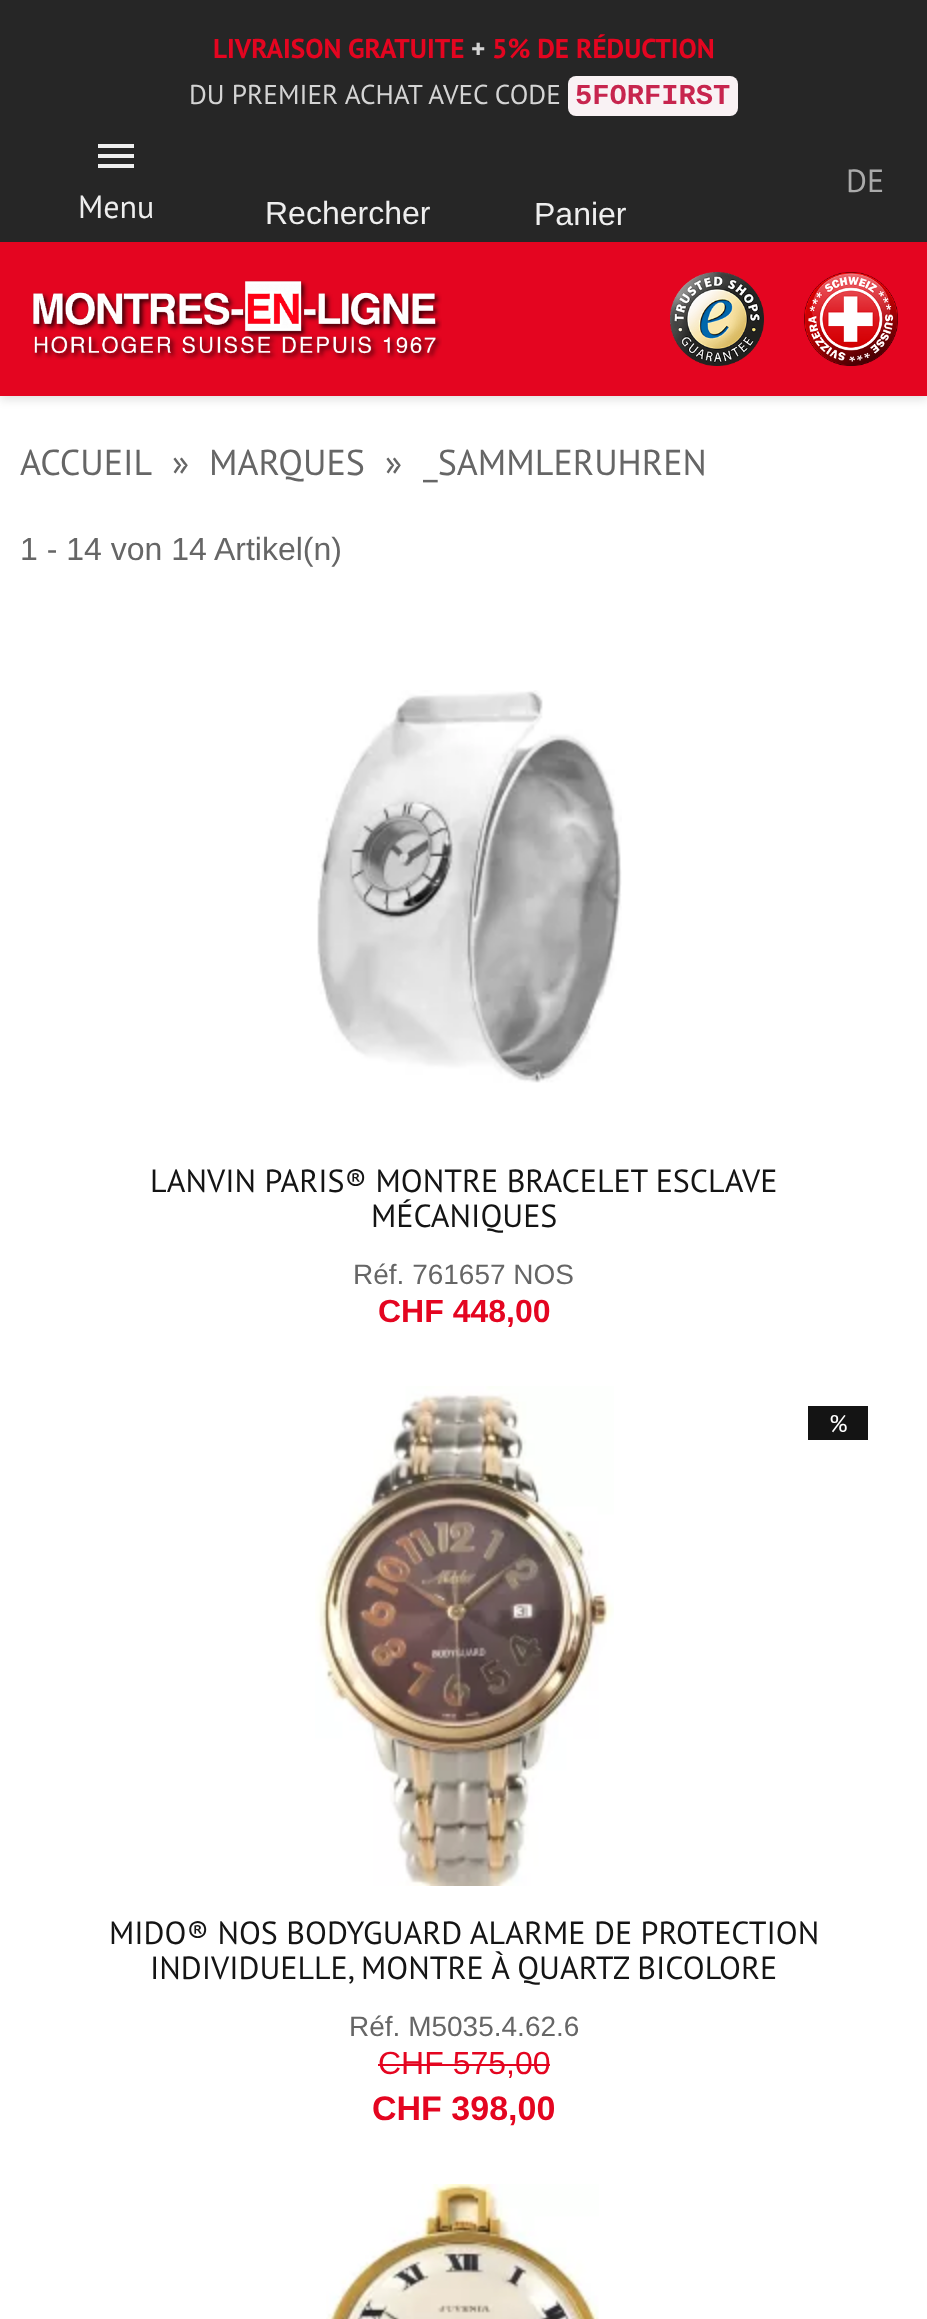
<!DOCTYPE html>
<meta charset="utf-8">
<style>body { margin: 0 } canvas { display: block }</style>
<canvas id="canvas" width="927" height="2319"></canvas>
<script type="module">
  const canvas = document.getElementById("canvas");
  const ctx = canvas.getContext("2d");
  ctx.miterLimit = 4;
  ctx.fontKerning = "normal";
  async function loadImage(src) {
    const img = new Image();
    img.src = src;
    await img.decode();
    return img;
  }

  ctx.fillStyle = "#ffffff";
  ctx.fillRect(0, 0, 927, 2319);
  ctx.fillStyle = "rgba(0, 0, 0, 0.11)";
  ctx.filter = "blur(5px)";
  ctx.beginPath();
  ctx.rect(0, 4, 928, 396);
  ctx.fill();
  ctx.filter = "none";
  ctx.fillStyle = "#262626";
  ctx.fillRect(0, 0, 927, 242);
  ctx.font = "bold 27.25px PT Sans";
  ctx.fillStyle = "#e40520";
  ctx.fillText("LIVRAISON GRATUITE", 213, 58);
  ctx.fillStyle = "#d4d4d4";
  ctx.fillText("+", 471, 58);
  ctx.fillStyle = "#e40520";
  ctx.fillText("5% DE RÉDUCTION", 492, 58);
  ctx.font = "27.25px PT Sans";
  ctx.fillStyle = "#d4d4d4";
  ctx.fillText("DU PREMIER ACHAT AVEC CODE", 189, 104);
  ctx.fillStyle = "#f9f2f4";
  ctx.beginPath();
  ctx.roundRect(568, 76, 170, 40, 8);
  ctx.fill();
  ctx.font = "bold 28.75px Liberation Mono";
  ctx.fillStyle = "#c7254e";
  ctx.fillText("5FORFIRST", 575, 104);
  ctx.font = "32px PT Sans";
  ctx.fillStyle = "#aaaaaa";
  ctx.fillText("DE", 846, 192);
  ctx.fillStyle = "#eeeeee";
  ctx.fillRect(98, 144, 36, 4);
  ctx.fillRect(98, 154, 36, 4);
  ctx.fillRect(98, 164, 36, 4);
  ctx.fillText("Menu", 78, 218);
  ctx.font = "32px Liberation Sans";
  ctx.fillText("Rechercher", 265, 224);
  ctx.fillText("Panier", 534, 225);
  ctx.fillStyle = "#e40520";
  ctx.fillRect(0, 242, 927, 154);
  ctx.drawImage(await loadImage("img1.png"), 32, 280, 410, 80);
  ctx.drawImage(await loadImage("img2.png"), 670, 272, 94, 94);
  ctx.drawImage(await loadImage("img3.png"), 804, 272, 94, 94);
  ctx.font = "36px PT Sans";
  ctx.fillStyle = "#666666";
  ctx.fillText("ACCUEIL", 20, 475);
  ctx.fillText("»", 172, 475);
  ctx.fillText("MARQUES", 209, 475);
  ctx.fillText("»", 385, 475);
  ctx.fillText("_SAMMLERUHREN", 423, 475);
  ctx.font = "32px Liberation Sans";
  ctx.fillText("1 - 14 von 14 Artikel(n)", 20, 560);
  ctx.drawImage(await loadImage("img4.png"), 317, 690, 305, 393);
  ctx.font = "32px PT Sans";
  ctx.fillStyle = "#141414";
  ctx.fillText("LANVIN PARIS® MONTRE BRACELET ESCLAVE", 150, 1192);
  ctx.fillText("MÉCANIQUES", 371, 1227);
  ctx.font = "28px Liberation Sans";
  ctx.fillStyle = "#666666";
  ctx.fillText("Réf. 761657 NOS", 353, 1284);
  ctx.font = "bold 32px Liberation Sans";
  ctx.fillStyle = "#e40520";
  ctx.fillText("CHF 448,00", 378, 1322);
  ctx.drawImage(await loadImage("img5.png"), 315, 1386, 299, 500);
  ctx.fillStyle = "#141414";
  ctx.fillRect(808, 1406, 60, 34);
  ctx.font = "24px PT Sans";
  ctx.fillStyle = "#ffffff";
  ctx.fillText("%", 829, 1432);
  ctx.font = "32px PT Sans";
  ctx.fillStyle = "#141414";
  ctx.fillText("MIDO® NOS BODYGUARD ALARME DE PROTECTION", 109, 1944);
  ctx.fillText("INDIVIDUELLE, MONTRE À QUARTZ BICOLORE", 150, 1979);
  ctx.font = "28px Liberation Sans";
  ctx.fillStyle = "#666666";
  ctx.fillText("Réf. M5035.4.62.6", 349, 2036);
  ctx.font = "32px Liberation Sans";
  ctx.fillStyle = "#e40520";
  ctx.fillText("CHF 575,00", 378, 2074);
  ctx.fillRect(378, 2064, 172, 2);
  ctx.font = "bold 34px Liberation Sans";
  ctx.fillText("CHF 398,00", 372, 2120);
  ctx.drawImage(await loadImage("img6.png"), 326, 2184, 273, 135);
</script>
